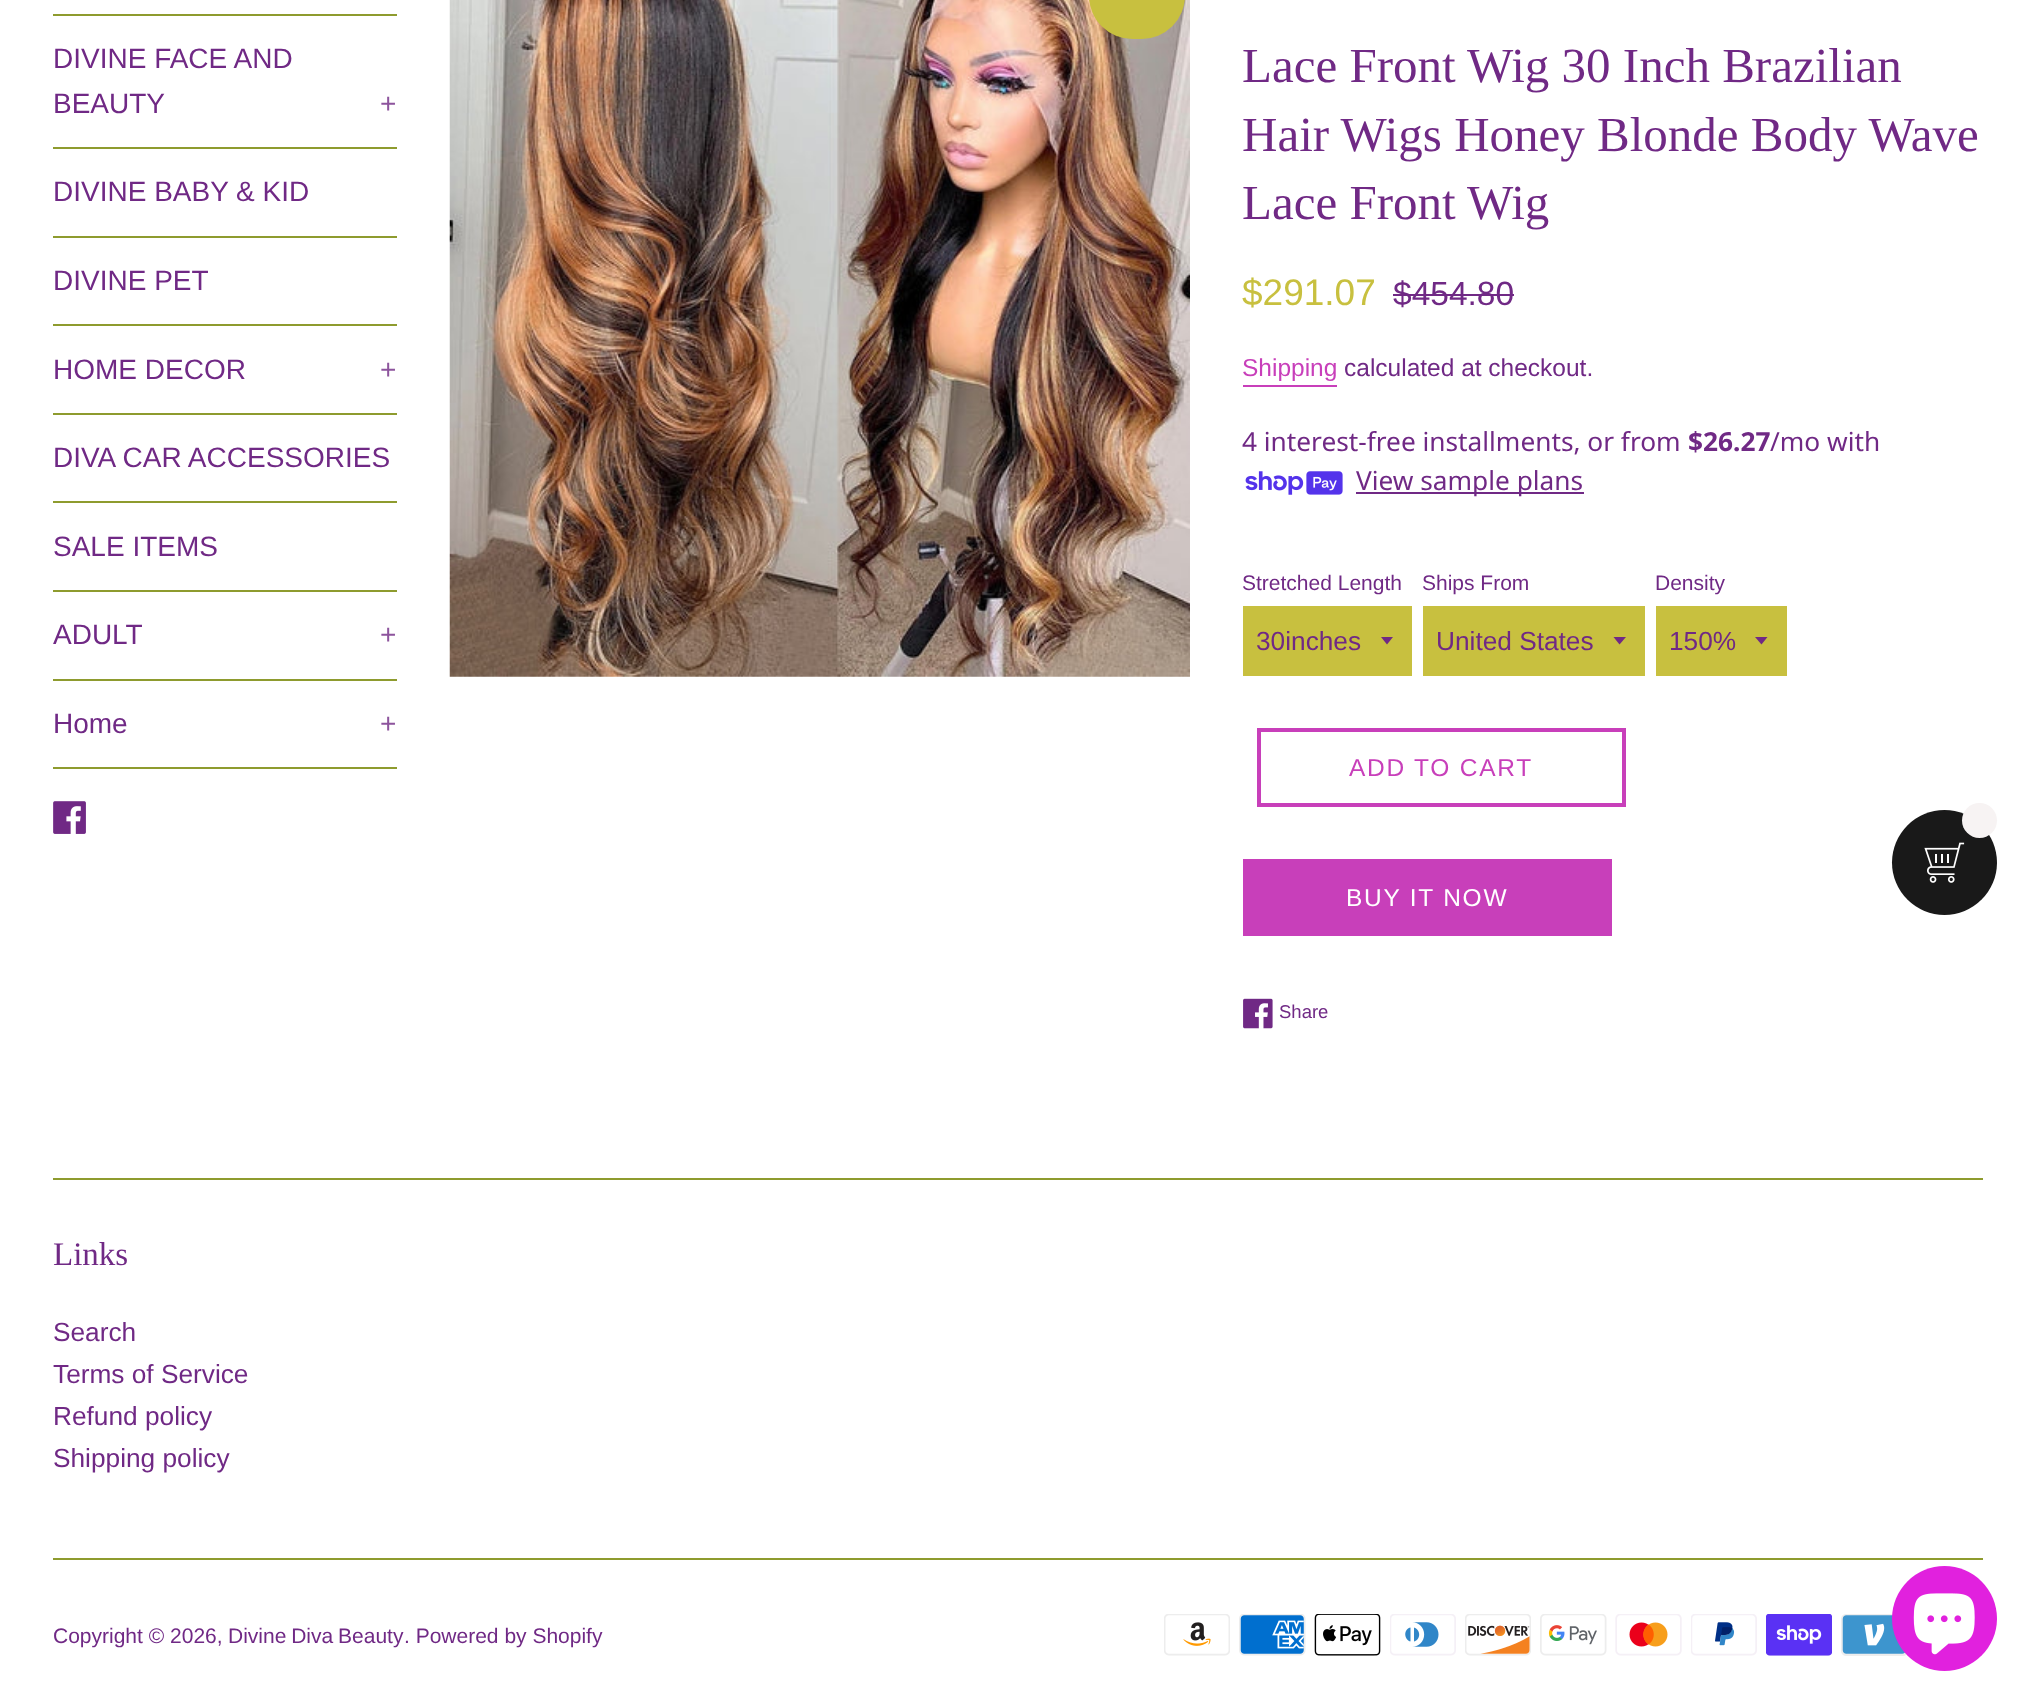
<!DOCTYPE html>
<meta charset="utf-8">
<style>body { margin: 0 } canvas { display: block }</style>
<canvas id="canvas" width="2035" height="1707"></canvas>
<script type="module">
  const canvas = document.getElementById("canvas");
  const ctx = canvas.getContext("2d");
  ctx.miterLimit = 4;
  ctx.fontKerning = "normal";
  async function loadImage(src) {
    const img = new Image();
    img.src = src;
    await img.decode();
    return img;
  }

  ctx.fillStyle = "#ffffff";
  ctx.fillRect(0, 0, 2035, 1707);
  ctx.fillStyle = "#8e9b2e";
  ctx.fillRect(53, 14, 344, 2);
  ctx.fillRect(53, 147, 344, 2);
  ctx.font = "28px Liberation Sans";
  ctx.fillStyle = "#702985";
  ctx.fillText("DIVINE FACE AND", 53, 68);
  ctx.fillText("BEAUTY", 53, 113);
  ctx.fillStyle = "#8d549d";
  ctx.fillText("+", 380, 113);
  ctx.fillStyle = "#8e9b2e";
  ctx.fillRect(53, 236, 344, 2);
  ctx.fillStyle = "#702985";
  ctx.fillText("DIVINE BABY & KID", 53, 201);
  ctx.fillStyle = "#8e9b2e";
  ctx.fillRect(53, 324, 344, 2);
  ctx.fillStyle = "#702985";
  ctx.fillText("DIVINE PET", 53, 290);
  ctx.fillStyle = "#8e9b2e";
  ctx.fillRect(53, 413, 344, 2);
  ctx.fillStyle = "#702985";
  ctx.fillText("HOME DECOR", 53, 379);
  ctx.fillStyle = "#8d549d";
  ctx.fillText("+", 380, 379);
  ctx.fillStyle = "#8e9b2e";
  ctx.fillRect(53, 501, 344, 2);
  ctx.fillStyle = "#702985";
  ctx.fillText("DIVA CAR ACCESSORIES", 53, 467);
  ctx.fillStyle = "#8e9b2e";
  ctx.fillRect(53, 590, 344, 2);
  ctx.fillStyle = "#702985";
  ctx.fillText("SALE ITEMS", 53, 556);
  ctx.fillStyle = "#8e9b2e";
  ctx.fillRect(53, 679, 344, 2);
  ctx.fillStyle = "#702985";
  ctx.fillText("ADULT", 53, 644);
  ctx.fillStyle = "#8d549d";
  ctx.fillText("+", 380, 644);
  ctx.fillStyle = "#8e9b2e";
  ctx.fillRect(53, 767, 344, 2);
  ctx.fillStyle = "#702985";
  ctx.fillText("Home", 53, 733);
  ctx.fillStyle = "#8d549d";
  ctx.fillText("+", 380, 733);
  ctx.drawImage(await loadImage("img1.png"), 53, 801, 33, 33);
  ctx.drawImage(await loadImage("img2.png"), 449, 0, 741, 677);
  ctx.fillStyle = "#c8c03f";
  ctx.beginPath();
  ctx.roundRect(1089, -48, 96, 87, 48);
  ctx.fill();
  ctx.font = "49px Liberation Serif";
  ctx.fillStyle = "#702985";
  ctx.fillText("Lace Front Wig 30 Inch Brazilian", 1242, 82);
  ctx.fillText("Hair Wigs Honey Blonde Body Wave", 1242, 151);
  ctx.fillText("Lace Front Wig", 1242, 219);
  ctx.font = "37px Liberation Sans";
  ctx.fillStyle = "#c8c03f";
  ctx.fillText("$291.07", 1242, 305);
  ctx.font = "33.5px Liberation Sans";
  ctx.fillStyle = "#702985";
  ctx.fillText("$454.80", 1393, 305);
  ctx.fillRect(1393, 294, 121, 2);
  ctx.font = "24.5px Liberation Sans";
  ctx.fillStyle = "#c83fba";
  ctx.fillText("Shipping", 1242, 376);
  ctx.fillRect(1243, 385, 94, 2);
  ctx.fillStyle = "#702985";
  ctx.fillText("calculated at checkout.", 1344, 376);
  ctx.font = "26.25px Noto Sans";
  ctx.fillText("4 interest-free installments, or from", 1242, 451);
  ctx.font = "bold 26.25px Noto Sans";
  ctx.fillText("$26.27", 1688, 451);
  ctx.font = "26.25px Noto Sans";
  ctx.fillText("/mo with", 1770, 451);
  ctx.drawImage(await loadImage("img3.png"), 1245, 471, 98, 24);
  ctx.fillRect(1356, 492, 228, 2);
  ctx.fillText("View sample plans", 1356, 490);
  ctx.font = "21px Liberation Sans";
  ctx.fillText("Stretched Length", 1242, 590);
  ctx.fillStyle = "#c8c03f";
  ctx.fillRect(1243, 606, 169, 70);
  ctx.fillStyle = "#702985";
  ctx.beginPath();
  ctx.moveTo(1381, 637);
  ctx.lineTo(1387, 644.5);
  ctx.lineTo(1393, 637);
  ctx.closePath();
  ctx.fill();
  ctx.font = "26.25px Liberation Sans";
  ctx.fillText("30inches", 1256, 650);
  ctx.font = "21px Liberation Sans";
  ctx.fillText("Ships From", 1422, 590);
  ctx.fillStyle = "#c8c03f";
  ctx.fillRect(1423, 606, 222, 70);
  ctx.fillStyle = "#702985";
  ctx.beginPath();
  ctx.moveTo(1613.5, 637);
  ctx.lineTo(1619.5, 644.5);
  ctx.lineTo(1626, 637);
  ctx.closePath();
  ctx.fill();
  ctx.font = "26.25px Liberation Sans";
  ctx.fillText("United States", 1436, 650);
  ctx.font = "21px Liberation Sans";
  ctx.fillText("Density", 1655, 590);
  ctx.fillStyle = "#c8c03f";
  ctx.fillRect(1656, 606, 131, 70);
  ctx.fillStyle = "#702985";
  ctx.beginPath();
  ctx.moveTo(1755, 637);
  ctx.lineTo(1761.5, 644.5);
  ctx.lineTo(1767.5, 637);
  ctx.closePath();
  ctx.fill();
  ctx.font = "26.25px Liberation Sans";
  ctx.fillText("150%", 1669, 650);
  ctx.strokeStyle = "#c83fba";
  ctx.lineWidth = 4;
  ctx.strokeRect(1259, 730, 365, 75);
  ctx.letterSpacing = "1.75px";
  ctx.font = "24.5px Liberation Sans";
  ctx.fillStyle = "#c83fba";
  ctx.fillText("ADD TO CART", 1349, 776);
  ctx.fillRect(1243, 859, 369, 77);
  ctx.fillStyle = "#ffffff";
  ctx.fillText("BUY IT NOW", 1346, 906);
  ctx.drawImage(await loadImage("img4.png"), 1243, 998, 30, 31);
  ctx.letterSpacing = "0px";
  ctx.font = "18.5px Liberation Sans";
  ctx.fillStyle = "#702985";
  ctx.fillText("Share", 1279, 1018);
  ctx.fillStyle = "#8e9b2e";
  ctx.fillRect(53, 1178, 1930, 2);
  ctx.font = "33px Liberation Serif";
  ctx.fillStyle = "#702985";
  ctx.fillText("Links", 53, 1265);
  ctx.font = "26.25px Liberation Sans";
  ctx.fillText("Search", 53, 1341);
  ctx.fillText("Terms of Service", 53, 1383);
  ctx.fillText("Refund policy", 53, 1425);
  ctx.fillText("Shipping policy", 53, 1467);
  ctx.fillStyle = "#8e9b2e";
  ctx.fillRect(53, 1558, 1930, 2);
  ctx.font = "21px Liberation Sans";
  ctx.fillStyle = "#702985";
  ctx.fillText("Copyright © 2026,", 53, 1643);
  ctx.wordSpacing = "-1px";
  ctx.fillText("Divine Diva Beauty", 228, 1643);
  ctx.wordSpacing = "0px";
  ctx.fillText(". Powered by Shopify", 404, 1643);
  ctx.drawImage(await loadImage("img5.png"), 1164, 1614, 66, 42);
  ctx.drawImage(await loadImage("img6.png"), 1239, 1614, 67, 42);
  ctx.drawImage(await loadImage("img7.png"), 1314, 1614, 67, 42);
  ctx.drawImage(await loadImage("img8.png"), 1390, 1614, 66, 42);
  ctx.drawImage(await loadImage("img9.png"), 1465, 1614, 66, 42);
  ctx.drawImage(await loadImage("img10.png"), 1540, 1614, 67, 42);
  ctx.drawImage(await loadImage("img11.png"), 1615, 1614, 67, 42);
  ctx.drawImage(await loadImage("img12.png"), 1691, 1614, 66, 42);
  ctx.drawImage(await loadImage("img13.png"), 1766, 1614, 66, 42);
  ctx.drawImage(await loadImage("img14.png"), 1841, 1614, 66, 42);
  ctx.fillStyle = "#191919";
  ctx.beginPath();
  ctx.arc(1944.5, 862.5, 52.5, 0, Math.PI * 2);
  ctx.fill();
  ctx.fillStyle = "#f7f3f3";
  ctx.beginPath();
  ctx.arc(1979.5, 820.5, 17.5, 0, Math.PI * 2);
  ctx.fill();
  ctx.drawImage(await loadImage("img15.png"), 1924, 842, 41, 41);
  ctx.fillStyle = "#e121de";
  ctx.beginPath();
  ctx.arc(1944.5, 1618.5, 52.5, 0, Math.PI * 2);
  ctx.fill();
  ctx.drawImage(await loadImage("img16.png"), 1913, 1593, 62, 62);
</script>
